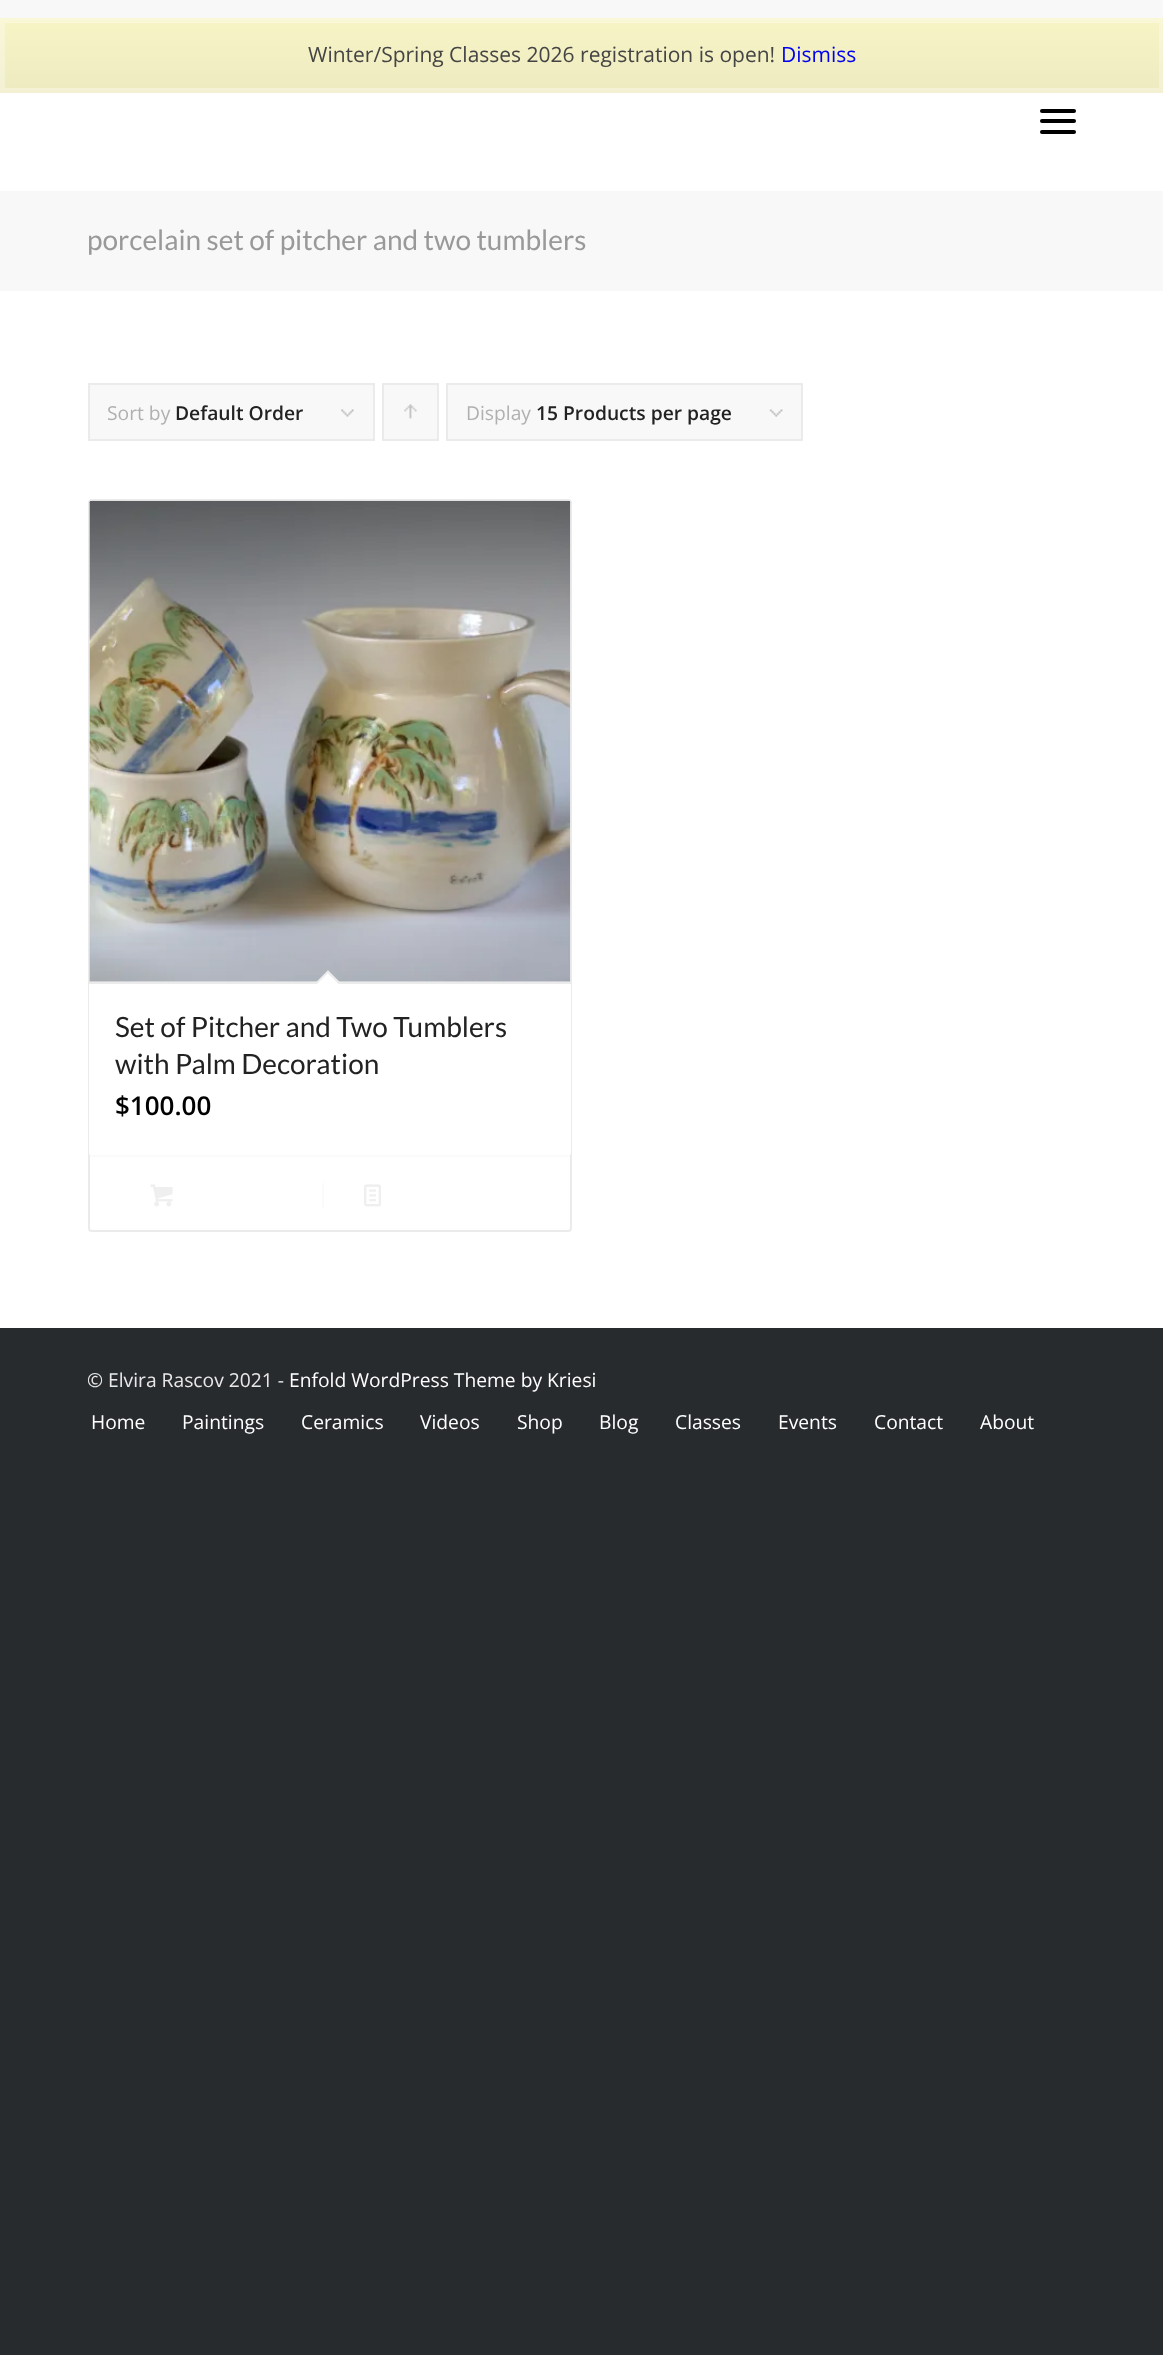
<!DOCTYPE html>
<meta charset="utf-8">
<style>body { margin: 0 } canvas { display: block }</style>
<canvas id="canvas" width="1163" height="2355"></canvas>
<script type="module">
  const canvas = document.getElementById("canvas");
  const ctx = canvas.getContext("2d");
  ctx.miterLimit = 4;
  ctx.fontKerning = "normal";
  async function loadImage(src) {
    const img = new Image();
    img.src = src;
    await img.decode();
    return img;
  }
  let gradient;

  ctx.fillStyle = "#282b2e";
  ctx.fillRect(0, 0, 1163, 2355);
  gradient = ctx.createLinearGradient(582, 17, 582, 93);
  gradient.addColorStop(0, "#f7f5c6");
  gradient.addColorStop(1, "#eeeac1");
  ctx.fillStyle = gradient;
  ctx.fillRect(0, 18, 1163, 75);
  ctx.strokeStyle = "rgba(255, 255, 255, 0.3)";
  ctx.lineWidth = 5;
  ctx.strokeRect(2.5, 20.5, 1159, 70);
  ctx.font = "21px Open Sans";
  ctx.fillStyle = "#444444";
  ctx.fillText("Winter/Spring Classes 2026 registration is open!", 308, 62);
  ctx.fillStyle = "#0000ee";
  ctx.fillText("Dismiss", 781, 62);
  ctx.fillStyle = "#f8f8f8";
  ctx.fillRect(0, 0, 1163, 18);
  ctx.fillStyle = "#ffffff";
  ctx.fillRect(0, 93, 1163, 98);
  ctx.fillStyle = "#000000";
  ctx.beginPath();
  ctx.roundRect(1040, 119, 36, 4, 2);
  ctx.fill();
  ctx.beginPath();
  ctx.roundRect(1040, 109, 36, 4, 2);
  ctx.fill();
  ctx.beginPath();
  ctx.roundRect(1040, 130, 36, 4, 2);
  ctx.fill();
  ctx.fillStyle = "#ffffff";
  ctx.fillRect(0, 291, 1163, 1037);
  ctx.fillStyle = "#f8f8f8";
  ctx.fillRect(0, 191, 1163, 100);
  ctx.font = "28px Lato";
  ctx.fillStyle = "#999999";
  ctx.fillText("porcelain set of pitcher and two tumblers", 87, 250);
  ctx.fillStyle = "#f8f8f8";
  ctx.fillRect(90, 385, 283, 54);
  ctx.drawImage(await loadImage("img1.png"), 341, 409, 13, 8);
  ctx.strokeStyle = "#ebebeb";
  ctx.lineWidth = 2;
  ctx.strokeRect(89, 384, 285, 56);
  ctx.font = "19.25px Open Sans";
  ctx.fillStyle = "#b0b0b0";
  ctx.fillText("Sort by", 107, 420);
  ctx.font = "600 19.25px Open Sans";
  ctx.fillStyle = "#222222";
  ctx.fillText("Default Order", 175, 420);
  ctx.fillStyle = "#f8f8f8";
  ctx.fillRect(384, 385, 53, 54);
  ctx.drawImage(await loadImage("img2.png"), 404, 404, 13, 15);
  ctx.strokeRect(383, 384, 55, 56);
  ctx.fillRect(448, 385, 353, 54);
  ctx.drawImage(await loadImage("img3.png"), 769, 409, 14, 8);
  ctx.strokeRect(447, 384, 355, 56);
  ctx.font = "19.25px Open Sans";
  ctx.fillStyle = "#b0b0b0";
  ctx.fillText("Display", 466, 420);
  ctx.font = "600 19.25px Open Sans";
  ctx.fillStyle = "#222222";
  ctx.fillText("15 Products per page", 536, 420);
  ctx.beginPath();
  ctx.roundRect(89, 500, 482, 731, 3);
  ctx.stroke();
  ctx.drawImage(await loadImage("img4.png"), 89, 500, 482, 482);
  ctx.fillStyle = "#ffffff";
  ctx.beginPath();
  ctx.roundRect(89, 982, 482, 173, [0, 0, 2, 2]);
  ctx.fill();
  ctx.fillStyle = "#ebebeb";
  ctx.fillRect(89, 982, 482, 2);
  ctx.fillStyle = "#ffffff";
  ctx.beginPath();
  ctx.moveTo(328, 970.5);
  ctx.lineTo(340.5, 983);
  ctx.lineTo(328, 995.5);
  ctx.lineTo(315.5, 983);
  ctx.closePath();
  ctx.fill();
  ctx.fillStyle = "#ebebeb";
  ctx.beginPath();
  ctx.moveTo(328, 970.5);
  ctx.lineTo(340.5, 983);
  ctx.lineTo(339, 984.5);
  ctx.lineTo(326.5, 972);
  ctx.closePath();
  ctx.fill();
  ctx.beginPath();
  ctx.moveTo(328, 970.5);
  ctx.lineTo(329, 972);
  ctx.lineTo(316.5, 984.5);
  ctx.lineTo(315.5, 983);
  ctx.closePath();
  ctx.fill();
  ctx.font = "28px Lato";
  ctx.fillStyle = "#222222";
  ctx.fillText("Set of Pitcher and Two Tumblers", 115, 1037);
  ctx.fillText("with Palm Decoration", 115, 1074);
  ctx.font = "600 26px Open Sans";
  ctx.fillStyle = "#000000";
  ctx.fillText("$100.00", 115, 1115);
  ctx.fillStyle = "rgba(235, 235, 235, 0.2)";
  ctx.fillRect(89, 1155, 482, 2);
  ctx.drawImage(await loadImage("img5.png"), 150, 1184, 23, 23);
  ctx.fillStyle = "#fbfbfb";
  ctx.fillRect(322, 1183, 2, 25);
  ctx.drawImage(await loadImage("img6.png"), 364, 1184, 17, 23);
  ctx.font = "19.25px Open Sans";
  ctx.fillStyle = "#e8e8e8";
  ctx.fillText("© Elvira Rascov 2021 -", 87, 1387);
  ctx.fillStyle = "#ffffff";
  ctx.fillText("Enfold WordPress Theme by Kriesi", 289, 1387);
  ctx.fillText("Home", 91, 1429);
  ctx.fillText("Paintings", 182, 1429);
  ctx.fillText("Ceramics", 301, 1429);
  ctx.fillText("Videos", 420, 1429);
  ctx.fillText("Shop", 517, 1429);
  ctx.fillText("Blog", 599, 1429);
  ctx.fillText("Classes", 675, 1429);
  ctx.fillText("Events", 778, 1429);
  ctx.fillText("Contact", 874, 1429);
  ctx.fillText("About", 980, 1429);
</script>
